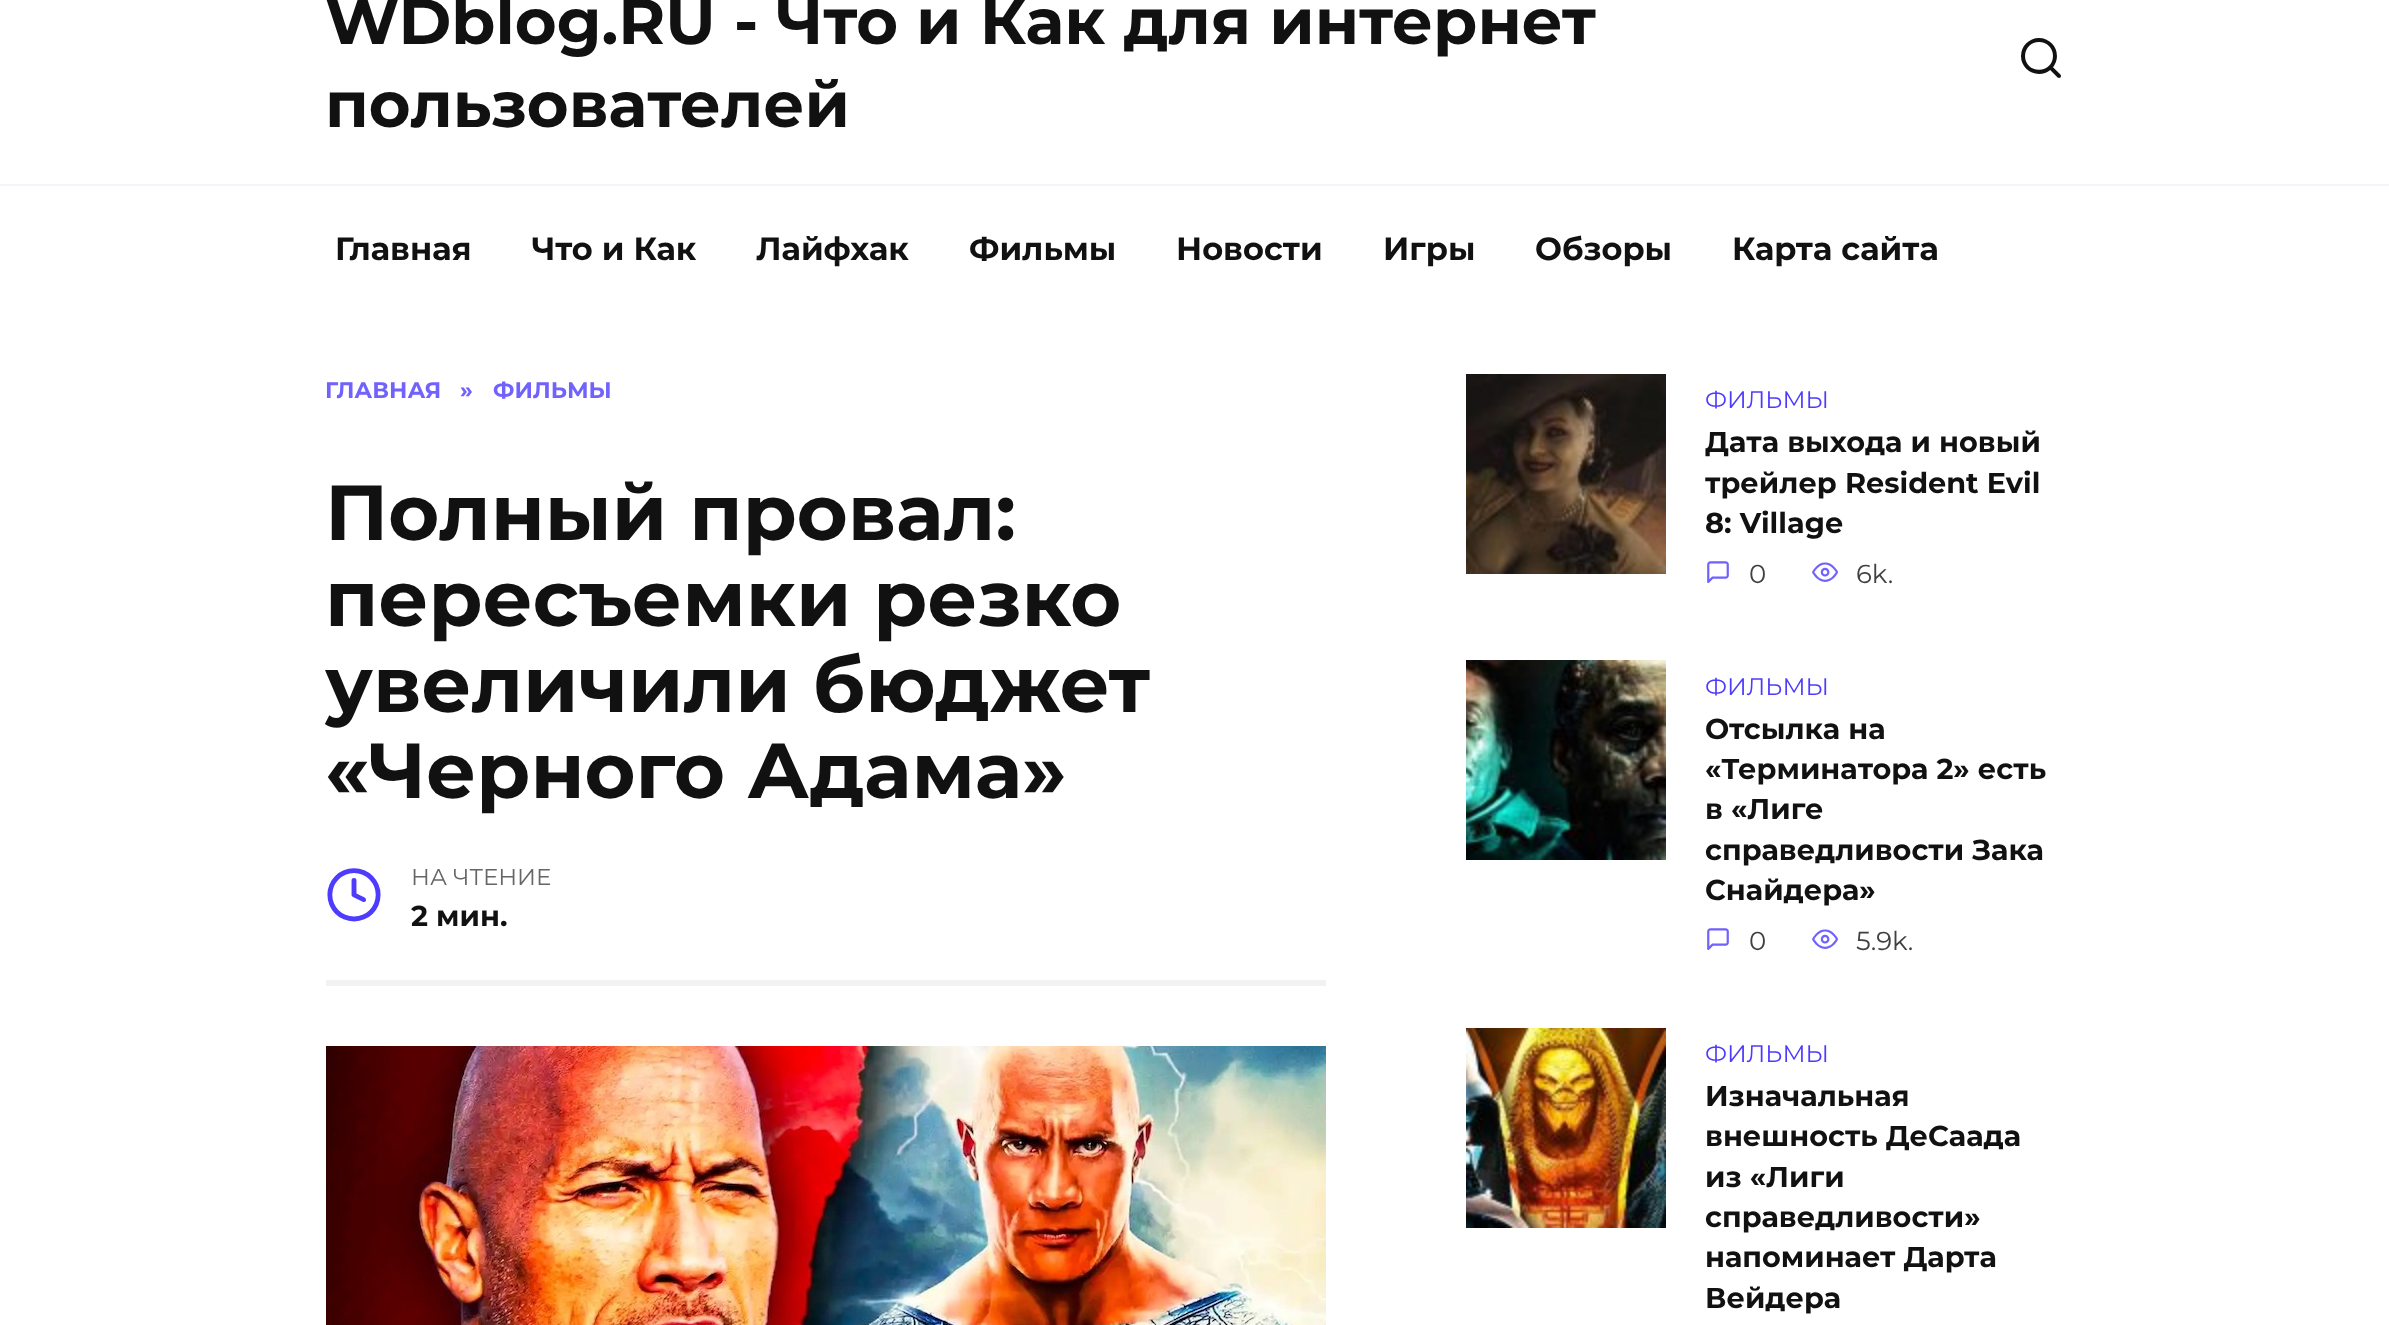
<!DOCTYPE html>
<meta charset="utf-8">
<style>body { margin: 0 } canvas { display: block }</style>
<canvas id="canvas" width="2389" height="1325"></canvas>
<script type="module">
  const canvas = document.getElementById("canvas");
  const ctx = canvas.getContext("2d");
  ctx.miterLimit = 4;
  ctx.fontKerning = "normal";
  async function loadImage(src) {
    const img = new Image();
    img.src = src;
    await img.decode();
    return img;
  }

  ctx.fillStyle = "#ffffff";
  ctx.fillRect(0, 0, 2389, 1325);
  ctx.fillStyle = "#f2f5f9";
  ctx.fillRect(0, 184, 2389, 2);
  ctx.font = "bold 64px Montserrat";
  ctx.fillStyle = "#111111";
  ctx.fillText("WDblog.RU - Что и Как для интернет", 325, 44);
  ctx.fillText("пользователей", 325, 127);
  ctx.font = "48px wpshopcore";
  ctx.fillText("🔍", 2017, 78);
  ctx.font = "bold 32px Montserrat";
  ctx.fillText("Главная", 335, 260);
  ctx.fillText("Что и Как", 532, 260);
  ctx.fillText("Лайфхак", 756, 260);
  ctx.fillText("Фильмы", 969, 260);
  ctx.fillText("Новости", 1176, 260);
  ctx.fillText("Игры", 1383, 260);
  ctx.fillText("Обзоры", 1535, 260);
  ctx.fillText("Карта сайта", 1732, 260);
  ctx.font = "bold 22.5px Montserrat";
  ctx.fillStyle = "#7162fe";
  ctx.fillText("ГЛАВНАЯ", 325, 398);
  ctx.fillText("»", 460, 398);
  ctx.fillText("ФИЛЬМЫ", 493, 398);
  ctx.font = "bold 78px Montserrat";
  ctx.fillStyle = "#111111";
  ctx.fillText("Полный провал:", 325, 540);
  ctx.fillText("пересъемки резко", 325, 626);
  ctx.fillText("увеличили бюджет", 325, 712);
  ctx.fillText("«Черного Адама»", 325, 798);
  ctx.fillStyle = "#f2f2f2";
  ctx.fillRect(326, 980, 1000, 6);
  ctx.font = "58px wpshopcore";
  ctx.fillStyle = "#4d3bfe";
  ctx.fillText("🕒", 325, 919);
  ctx.font = "23px Montserrat";
  ctx.fillStyle = "#666666";
  ctx.fillText("НА ЧТЕНИЕ", 411, 885);
  ctx.font = "bold 28.75px Montserrat";
  ctx.fillStyle = "#111111";
  ctx.fillText("2 мин.", 411, 926);
  ctx.drawImage(await loadImage("img1.png"), 326, 1046, 1000, 279);
  ctx.drawImage(await loadImage("img2.png"), 1466, 374, 200, 200);
  ctx.font = "24px Montserrat";
  ctx.fillStyle = "#4d3bfe";
  ctx.fillText("ФИЛЬМЫ", 1705, 408);
  ctx.font = "bold 28.75px Montserrat";
  ctx.fillStyle = "#111111";
  ctx.fillText("Дата выхода и новый", 1705, 452);
  ctx.fillText("трейлер Resident Evil", 1705, 493);
  ctx.fillText("8: Village", 1705, 533);
  ctx.font = "26px wpshopcore";
  ctx.fillStyle = "#7162fe";
  ctx.fillText("💬", 1705, 583);
  ctx.font = "26px Montserrat";
  ctx.fillStyle = "#414141";
  ctx.fillText("0", 1749, 583);
  ctx.font = "26px wpshopcore";
  ctx.fillStyle = "#7162fe";
  ctx.fillText("👀", 1812, 583);
  ctx.font = "26px Montserrat";
  ctx.fillStyle = "#414141";
  ctx.fillText("6k.", 1856, 583);
  ctx.drawImage(await loadImage("img3.png"), 1466, 660, 200, 200);
  ctx.font = "24px Montserrat";
  ctx.fillStyle = "#4d3bfe";
  ctx.fillText("ФИЛЬМЫ", 1705, 695);
  ctx.font = "bold 28.75px Montserrat";
  ctx.fillStyle = "#111111";
  ctx.fillText("Отсылка на", 1705, 739);
  ctx.fillText("«Терминатора 2» есть", 1705, 779);
  ctx.fillText("в «Лиге", 1705, 819);
  ctx.fillText("справедливости Зака", 1705, 860);
  ctx.fillText("Снайдера»", 1705, 900);
  ctx.font = "26px wpshopcore";
  ctx.fillStyle = "#7162fe";
  ctx.fillText("💬", 1705, 950);
  ctx.font = "26px Montserrat";
  ctx.fillStyle = "#414141";
  ctx.fillText("0", 1749, 950);
  ctx.font = "26px wpshopcore";
  ctx.fillStyle = "#7162fe";
  ctx.fillText("👀", 1812, 950);
  ctx.font = "26px Montserrat";
  ctx.fillStyle = "#414141";
  ctx.fillText("5.9k.", 1856, 950);
  ctx.drawImage(await loadImage("img4.png"), 1466, 1028, 200, 200);
  ctx.font = "24px Montserrat";
  ctx.fillStyle = "#4d3bfe";
  ctx.fillText("ФИЛЬМЫ", 1705, 1062);
  ctx.font = "bold 28.75px Montserrat";
  ctx.fillStyle = "#111111";
  ctx.fillText("Изначальная", 1705, 1106);
  ctx.fillText("внешность ДеСаада", 1705, 1146);
  ctx.fillText("из «Лиги", 1705, 1187);
  ctx.fillText("справедливости»", 1705, 1227);
  ctx.fillText("напоминает Дарта", 1705, 1267);
  ctx.fillText("Вейдера", 1705, 1308);
</script>
